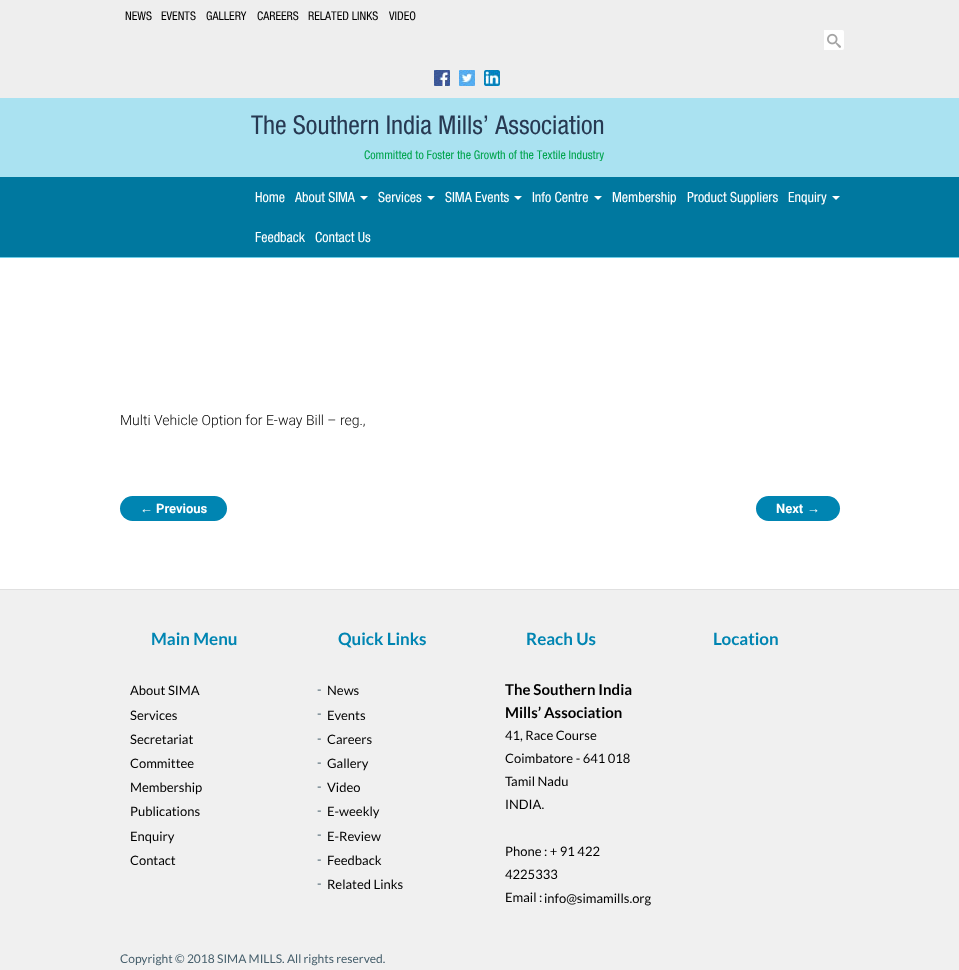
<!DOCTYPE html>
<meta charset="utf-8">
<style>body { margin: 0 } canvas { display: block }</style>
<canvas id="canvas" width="959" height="970"></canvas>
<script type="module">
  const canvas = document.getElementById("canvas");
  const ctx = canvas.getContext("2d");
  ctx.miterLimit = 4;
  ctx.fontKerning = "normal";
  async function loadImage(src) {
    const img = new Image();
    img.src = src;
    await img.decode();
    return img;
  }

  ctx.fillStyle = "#ffffff";
  ctx.fillRect(0, 0, 959, 970);
  ctx.fillStyle = "#eeeeee";
  ctx.fillRect(0, 0, 959, 98);
  ctx.font = "12px Helvetica Neue";
  ctx.fillStyle = "#000000";
  ctx.fillText("NEWS", 125, 20);
  ctx.fillText("EVENTS", 161, 20);
  ctx.fillText("GALLERY", 206, 20);
  ctx.fillText("CAREERS", 257, 20);
  ctx.fillText("RELATED LINKS", 308, 20);
  ctx.fillText("VIDEO", 389, 20);
  ctx.fillStyle = "#ffffff";
  ctx.beginPath();
  ctx.roundRect(824, 30, 20, 20, [0, 2, 2, 0]);
  ctx.fill();
  ctx.drawImage(await loadImage("img1.png"), 827, 33, 14, 15);
  ctx.drawImage(await loadImage("img2.png"), 434, 70, 16, 16);
  ctx.drawImage(await loadImage("img3.png"), 459, 70, 16, 16);
  ctx.drawImage(await loadImage("img4.png"), 484, 70, 16, 16);
  ctx.fillStyle = "#aae2f1";
  ctx.fillRect(0, 98, 959, 79);
  ctx.font = "26px Helvetica Neue";
  ctx.fillStyle = "#273952";
  ctx.fillText("The Southern India Mills’ Association", 251, 134);
  ctx.font = "12px Helvetica Neue";
  ctx.fillStyle = "#00a44d";
  ctx.fillText("Committed to Foster the Growth of the Textile Industry", 364, 159);
  ctx.fillStyle = "#00789f";
  ctx.fillRect(0, 177, 959, 80);
  ctx.fillStyle = "#6ecee8";
  ctx.fillRect(0, 257, 959, 1);
  ctx.font = "14px Helvetica Neue";
  ctx.fillStyle = "#ffffff";
  ctx.fillText("Home", 255, 202);
  ctx.fillText("About SIMA", 295, 202);
  ctx.beginPath();
  ctx.moveTo(360, 196);
  ctx.lineTo(368, 196);
  ctx.lineTo(364, 200);
  ctx.closePath();
  ctx.fill();
  ctx.fillText("Services", 378, 202);
  ctx.beginPath();
  ctx.moveTo(427, 196);
  ctx.lineTo(435, 196);
  ctx.lineTo(431, 200);
  ctx.closePath();
  ctx.fill();
  ctx.fillText("SIMA Events", 445, 202);
  ctx.beginPath();
  ctx.moveTo(514, 196);
  ctx.lineTo(522, 196);
  ctx.lineTo(518, 200);
  ctx.closePath();
  ctx.fill();
  ctx.fillText("Info Centre", 532, 202);
  ctx.beginPath();
  ctx.moveTo(594, 196);
  ctx.lineTo(602, 196);
  ctx.lineTo(598, 200);
  ctx.closePath();
  ctx.fill();
  ctx.fillText("Membership", 612, 202);
  ctx.fillText("Product Suppliers", 687, 202);
  ctx.fillText("Enquiry", 788, 202);
  ctx.beginPath();
  ctx.moveTo(832, 196);
  ctx.lineTo(840, 196);
  ctx.lineTo(836, 200);
  ctx.closePath();
  ctx.fill();
  ctx.fillText("Feedback", 255, 242);
  ctx.fillText("Contact Us", 315, 242);
  ctx.font = "300 14px Roboto";
  ctx.fillStyle = "#000000";
  ctx.fillText("Multi Vehicle Option for E-way Bill – reg.,", 120, 425);
  ctx.fillStyle = "#0085b2";
  ctx.beginPath();
  ctx.roundRect(120, 496, 33, 25, [12.5, 0, 0, 12.5]);
  ctx.fill();
  ctx.font = "bold 13px Liberation Sans";
  ctx.fillStyle = "#ffffff";
  ctx.fillText("←", 140, 513);
  ctx.fillStyle = "#0085b2";
  ctx.beginPath();
  ctx.roundRect(153, 496, 74, 25, [0, 12.5, 12.5, 0]);
  ctx.fill();
  ctx.font = "bold 13px Roboto";
  ctx.fillStyle = "#ffffff";
  ctx.fillText("Previous", 156, 513);
  ctx.fillStyle = "#0085b2";
  ctx.beginPath();
  ctx.roundRect(756, 496, 51, 25, [12.5, 0, 0, 12.5]);
  ctx.fill();
  ctx.fillStyle = "#ffffff";
  ctx.fillText("Next", 776, 513);
  ctx.fillStyle = "#0085b2";
  ctx.beginPath();
  ctx.roundRect(807, 496, 33, 25, [0, 12.5, 12.5, 0]);
  ctx.fill();
  ctx.font = "bold 13px Liberation Sans";
  ctx.fillStyle = "#ffffff";
  ctx.fillText("→", 807, 513);
  ctx.fillStyle = "#f0f0f0";
  ctx.fillRect(0, 590, 959, 380);
  ctx.fillStyle = "#e0e0e0";
  ctx.fillRect(0, 589, 959, 1);
  ctx.font = "bold 17px Lato";
  ctx.fillStyle = "#0085b2";
  ctx.fillText("Main Menu", 151, 645);
  ctx.font = "13px Lato";
  ctx.fillStyle = "#000000";
  ctx.fillText("About SIMA", 130, 695);
  ctx.fillText("Services", 130, 720);
  ctx.fillText("Secretariat", 130, 744);
  ctx.fillText("Committee", 130, 768);
  ctx.fillText("Membership", 130, 792);
  ctx.fillText("Publications", 130, 816);
  ctx.fillText("Enquiry", 130, 841);
  ctx.fillText("Contact", 130, 865);
  ctx.font = "bold 17px Lato";
  ctx.fillStyle = "#0085b2";
  ctx.fillText("Quick Links", 338, 645);
  ctx.font = "13px Lato";
  ctx.fillStyle = "#455e6b";
  ctx.fillText("-", 317, 694);
  ctx.fillStyle = "#000000";
  ctx.fillText("News", 327, 695);
  ctx.fillStyle = "#455e6b";
  ctx.fillText("-", 317, 718);
  ctx.fillStyle = "#000000";
  ctx.fillText("Events", 327, 720);
  ctx.fillStyle = "#455e6b";
  ctx.fillText("-", 317, 743);
  ctx.fillStyle = "#000000";
  ctx.fillText("Careers", 327, 744);
  ctx.fillStyle = "#455e6b";
  ctx.fillText("-", 317, 767);
  ctx.fillStyle = "#000000";
  ctx.fillText("Gallery", 327, 768);
  ctx.fillStyle = "#455e6b";
  ctx.fillText("-", 317, 791);
  ctx.fillStyle = "#000000";
  ctx.fillText("Video", 327, 792);
  ctx.fillStyle = "#455e6b";
  ctx.fillText("-", 317, 815);
  ctx.fillStyle = "#000000";
  ctx.fillText("E-weekly", 327, 816);
  ctx.fillStyle = "#455e6b";
  ctx.fillText("-", 317, 839);
  ctx.fillStyle = "#000000";
  ctx.fillText("E-Review", 327, 841);
  ctx.fillStyle = "#455e6b";
  ctx.fillText("-", 317, 864);
  ctx.fillStyle = "#000000";
  ctx.fillText("Feedback", 327, 865);
  ctx.fillStyle = "#455e6b";
  ctx.fillText("-", 317, 888);
  ctx.fillStyle = "#000000";
  ctx.fillText("Related Links", 327, 889);
  ctx.font = "bold 17px Lato";
  ctx.fillStyle = "#0085b2";
  ctx.fillText("Reach Us", 526, 645);
  ctx.font = "bold 15px Lato";
  ctx.fillStyle = "#000000";
  ctx.fillText("The Southern India", 505, 695);
  ctx.fillText("Mills’ Association", 505, 718);
  ctx.font = "13px Lato";
  ctx.fillText("41, Race Course", 505, 740);
  ctx.fillText("Coimbatore - 641 018", 505, 763);
  ctx.fillText("Tamil Nadu", 505, 786);
  ctx.fillText("INDIA.", 505, 809);
  ctx.fillText("Phone : + 91 422", 505, 856);
  ctx.fillText("4225333", 505, 879);
  ctx.fillText("Email :", 505, 902);
  ctx.fillText("info@simamills.org", 544, 903);
  ctx.font = "bold 17px Lato";
  ctx.fillStyle = "#0085b2";
  ctx.fillText("Location", 713, 645);
  ctx.font = "12px Lato";
  ctx.fillStyle = "#455e6b";
  ctx.fillText("Copyright © 2018 SIMA MILLS. All rights reserved.", 120, 963);
</script>
